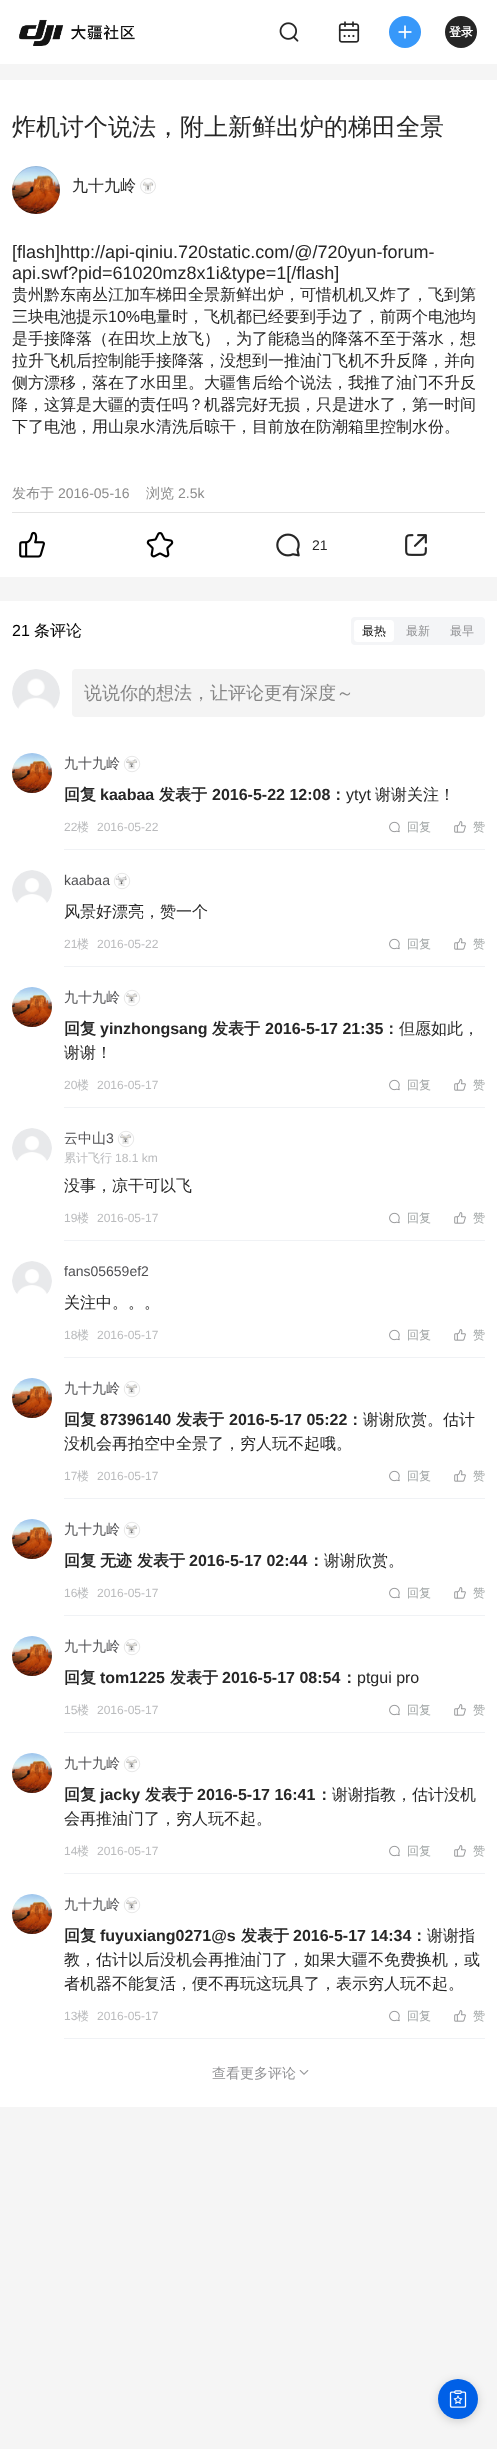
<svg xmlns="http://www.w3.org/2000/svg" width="497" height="2449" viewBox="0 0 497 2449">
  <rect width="100%" height="100%" fill="#f5f5f5"/>
  <path d="M0 0h497v64H0z" fill="#fff"/>
  <image x="19" y="19" width="116" height="27" href="img/1.png"/>
  <image x="279" y="22" width="20" height="20" href="img/2.png"/>
  <image x="338" y="21" width="22" height="22" href="img/3.png"/>
  <circle cx="405" cy="32" r="16" fill="#3798fa"/>
  <image x="398" y="25" width="14" height="14" href="img/4.png"/>
  <circle cx="461" cy="32" r="16" fill="#262626"/>
  <path d="M0 80h497v497H0z" fill="#fff"/>
  <image x="12" y="166" width="48" height="48" href="img/5.png"/>
  <circle cx="36" cy="190" r="23.5" fill="none" stroke="#00000014"/>
  <circle cx="148" cy="186" r="7.5" fill="none" stroke="#e4e4e4"/>
  <image x="142" y="181" width="12" height="11" href="img/6.png"/>
  <path d="M12 512h473v1H12z" fill="#e4e4e4"/>
  <image x="19" y="531" width="26" height="27" href="img/7.png"/>
  <image x="146" y="532" width="28" height="26" href="img/8.png"/>
  <image x="276" y="533" width="24" height="24" href="img/9.png"/>
  <image x="405" y="534" width="22" height="22" href="img/10.png"/>
  <path d="M0 601h497v1506H0z" fill="#fff"/>
  <rect x="351" y="617" width="134" height="28" rx="4" fill="#f4f5f7"/>
  <rect x="354" y="620" width="40" height="22" rx="4" fill="#fff"/>
  <image x="12" y="669" width="48" height="40" href="img/11.png"/>
  <rect x="72" y="669" width="413" height="48" rx="4" fill="#f4f4f4"/>
  <image x="12" y="753" width="40" height="40" href="img/12.png"/>
  <circle cx="132" cy="764" r="7.75" fill="none" stroke="#cecece" stroke-width="0.5"/>
  <image x="126" y="759" width="12" height="10" href="img/13.png"/>
  <image x="389" y="821" width="11" height="12" href="img/14.png"/>
  <image x="454" y="821" width="12" height="12" href="img/15.png"/>
  <path d="M64 849h421v1H64z" fill="#f0f2f5"/>
  <image x="12" y="870" width="40" height="33" href="img/16.png"/>
  <circle cx="122" cy="881" r="7.75" fill="none" stroke="#cecece" stroke-width="0.5"/>
  <image x="115" y="875" width="12" height="11" href="img/17.png"/>
  <image x="389" y="938" width="11" height="12" href="img/14.png"/>
  <image x="454" y="938" width="12" height="12" href="img/15.png"/>
  <path d="M64 966h421v1H64z" fill="#f0f2f5"/>
  <image x="12" y="987" width="40" height="40" href="img/18.png"/>
  <circle cx="132" cy="998" r="7.75" fill="none" stroke="#cecece" stroke-width="0.5"/>
  <image x="126" y="993" width="12" height="10" href="img/13.png"/>
  <image x="389" y="1079" width="11" height="12" href="img/14.png"/>
  <image x="454" y="1079" width="12" height="12" href="img/15.png"/>
  <path d="M64 1107h421v1H64z" fill="#f0f2f5"/>
  <image x="12" y="1128" width="40" height="33" href="img/16.png"/>
  <circle cx="126" cy="1139" r="7.75" fill="none" stroke="#cecece" stroke-width="0.5"/>
  <image x="120" y="1134" width="12" height="10" href="img/19.png"/>
  <image x="389" y="1212" width="11" height="12" href="img/14.png"/>
  <image x="454" y="1212" width="12" height="12" href="img/15.png"/>
  <path d="M64 1240h421v1H64z" fill="#f0f2f5"/>
  <image x="12" y="1261" width="40" height="33" href="img/20.png"/>
  <image x="389" y="1329" width="11" height="12" href="img/14.png"/>
  <image x="454" y="1329" width="12" height="12" href="img/15.png"/>
  <path d="M64 1357h421v1H64z" fill="#f0f2f5"/>
  <image x="12" y="1378" width="40" height="40" href="img/21.png"/>
  <circle cx="132" cy="1389" r="7.75" fill="none" stroke="#cecece" stroke-width="0.5"/>
  <image x="126" y="1384" width="12" height="10" href="img/13.png"/>
  <image x="389" y="1470" width="11" height="12" href="img/14.png"/>
  <image x="454" y="1470" width="12" height="12" href="img/15.png"/>
  <path d="M64 1498h421v1H64z" fill="#f0f2f5"/>
  <image x="12" y="1519" width="40" height="40" href="img/22.png"/>
  <circle cx="132" cy="1530" r="7.75" fill="none" stroke="#cecece" stroke-width="0.5"/>
  <image x="126" y="1525" width="12" height="10" href="img/13.png"/>
  <image x="389" y="1587" width="11" height="12" href="img/14.png"/>
  <image x="454" y="1587" width="12" height="12" href="img/15.png"/>
  <path d="M64 1615h421v1H64z" fill="#f0f2f5"/>
  <image x="12" y="1636" width="40" height="40" href="img/21.png"/>
  <circle cx="132" cy="1647" r="7.75" fill="none" stroke="#cecece" stroke-width="0.5"/>
  <image x="126" y="1642" width="12" height="10" href="img/13.png"/>
  <image x="389" y="1704" width="11" height="12" href="img/14.png"/>
  <image x="454" y="1704" width="12" height="12" href="img/15.png"/>
  <path d="M64 1732h421v1H64z" fill="#f0f2f5"/>
  <image x="12" y="1753" width="40" height="40" href="img/23.png"/>
  <circle cx="132" cy="1764" r="7.75" fill="none" stroke="#cecece" stroke-width="0.5"/>
  <image x="126" y="1759" width="12" height="10" href="img/13.png"/>
  <image x="389" y="1845" width="11" height="12" href="img/14.png"/>
  <image x="454" y="1845" width="12" height="12" href="img/15.png"/>
  <path d="M64 1873h421v1H64z" fill="#f0f2f5"/>
  <image x="12" y="1894" width="40" height="40" href="img/21.png"/>
  <circle cx="132" cy="1905" r="7.75" fill="none" stroke="#cecece" stroke-width="0.5"/>
  <image x="126" y="1900" width="12" height="10" href="img/13.png"/>
  <image x="389" y="2010" width="11" height="12" href="img/14.png"/>
  <image x="454" y="2010" width="12" height="12" href="img/15.png"/>
  <path d="M64 2038h421v1H64z" fill="#f0f2f5"/>
  <image x="299" y="2070" width="10" height="5" href="img/24.png"/>
  <rect x="438" y="2381" width="40" height="40" rx="20" fill="#00000029" filter="blur(5px)"/>
  <circle cx="458" cy="2399" r="20" fill="#0060e7"/>
  <image x="449" y="2390" width="18" height="18" href="img/25.png"/>
  <text x="449" y="36" font-family="WenQuanYi Zen Hei" font-size="12" font-weight="bold" fill="#fff">登录</text>
  <text x="12" y="135" font-family="WenQuanYi Zen Hei" font-size="24" font-weight="500" fill="#262626">炸机讨个说法，附上新鲜出炉的梯田全景</text>
  <text x="72" y="191" font-family="WenQuanYi Zen Hei" font-size="16" font-weight="500" fill="#262626">九十九岭</text>
  <g font-family="Liberation Sans" font-size="18" fill="#262626">
    <text x="12" y="258">[flash]http://api-qiniu.720static.com/@/720yun-forum-</text>
    <text x="12" y="279">api.swf?pid=61020mz8x1i&amp;type=1[/flash]</text>
  </g>
  <g font-family="WenQuanYi Zen Hei" font-size="16" font-weight="500" fill="#262626">
    <text x="12" y="300">贵州黔东南丛江加车梯田全景新鲜出炉，可惜机机又炸了，飞到第</text>
    <text x="12" y="322">三块电池提示</text>
  </g>
  <text x="108" y="322" font-family="Liberation Sans" font-size="16" fill="#262626">10%</text>
  <g font-family="WenQuanYi Zen Hei" font-size="16" font-weight="500" fill="#262626">
    <text x="140" y="322">电量时，飞机都已经要到手边了，前两个电池均</text>
    <text x="12" y="344">是手接降落（在田坎上放飞），为了能稳当的降落不至于落水，想</text>
    <text x="12" y="366">拉升飞机后控制能手接降落，没想到一推油门飞机不升反降，并向</text>
    <text x="12" y="388">侧方漂移，落在了水田里。大疆售后给个说法，我推了油门不升反</text>
    <text x="12" y="410">降，这算是大疆的责任吗？机器完好无损，只是进水了，第一时间</text>
    <text x="12" y="432">下了电池，用山泉水清洗后晾干，目前放在防潮箱里控制水份。</text>
  </g>
  <text x="12" y="498" font-family="WenQuanYi Zen Hei" font-size="14" font-weight="500" fill="#8c8c8c">发布于</text>
  <text x="58" y="498" font-family="Liberation Sans" font-size="14" fill="#8c8c8c">2016-05-16</text>
  <text x="146" y="498" font-family="WenQuanYi Zen Hei" font-size="14" font-weight="500" fill="#8c8c8c">浏览</text>
  <text x="178" y="498" font-family="Liberation Sans" font-size="14" fill="#8c8c8c">2.5k</text>
  <text x="312" y="550" font-family="Liberation Sans" font-size="14" fill="#262626">21</text>
  <text x="12" y="636" font-family="Liberation Sans" font-size="16" fill="#000">21</text>
  <text x="34" y="636" font-family="WenQuanYi Zen Hei" font-size="16" font-weight="500" fill="#000">条评论</text>
  <text x="362" y="635" font-family="WenQuanYi Zen Hei" font-size="12" font-weight="500" fill="#0c0c0c">最热</text>
  <g font-family="WenQuanYi Zen Hei" font-size="12" font-weight="500" fill="#919294">
    <text x="406" y="635">最新</text>
    <text x="450" y="635">最早</text>
  </g>
  <text x="84" y="699" font-family="WenQuanYi Zen Hei" font-size="18" font-weight="500" fill="#868686">说说你的想法，让评论更有深度～</text>
  <text x="64" y="768" font-family="WenQuanYi Zen Hei" font-size="14" font-weight="500" fill="#4f4f52">九十九岭</text>
  <text x="64" y="800" font-family="WenQuanYi Zen Hei" font-size="16" font-weight="bold" fill="#262626">回复</text>
  <text x="100" y="800" font-family="Liberation Sans" font-size="16" font-weight="bold" fill="#262626">kaabaa</text>
  <text x="159" y="800" font-family="WenQuanYi Zen Hei" font-size="16" font-weight="bold" fill="#262626">发表于</text>
  <text x="212" y="800" font-family="Liberation Sans" font-size="16" font-weight="bold" fill="#262626">2016-5-22 12:08</text>
  <text x="330" y="800" font-family="WenQuanYi Zen Hei" font-size="16" font-weight="bold" fill="#262626">：</text>
  <text x="346" y="800" font-family="Liberation Sans" font-size="16" fill="#262626">ytyt</text>
  <text x="375" y="800" font-family="WenQuanYi Zen Hei" font-size="16" font-weight="500" fill="#262626">谢谢关注！</text>
  <text x="64" y="831" font-family="Liberation Sans" font-size="12" fill="#babbbd">22</text>
  <text x="77" y="831" font-family="WenQuanYi Zen Hei" font-size="12" font-weight="500" fill="#babbbd">楼</text>
  <text x="97" y="831" font-family="Liberation Sans" font-size="12" fill="#babbbd">2016-05-22</text>
  <g font-family="WenQuanYi Zen Hei" font-size="12" font-weight="500" fill="#a0a5a5">
    <text x="407" y="831">回复</text>
    <text x="473" y="831">赞</text>
  </g>
  <text x="64" y="885" font-family="Liberation Sans" font-size="14" fill="#4f4f52">kaabaa</text>
  <text x="64" y="917" font-family="WenQuanYi Zen Hei" font-size="16" font-weight="500" fill="#262626">风景好漂亮，赞一个</text>
  <text x="64" y="948" font-family="Liberation Sans" font-size="12" fill="#babbbd">21</text>
  <text x="77" y="948" font-family="WenQuanYi Zen Hei" font-size="12" font-weight="500" fill="#babbbd">楼</text>
  <text x="97" y="948" font-family="Liberation Sans" font-size="12" fill="#babbbd">2016-05-22</text>
  <g font-family="WenQuanYi Zen Hei" font-size="12" font-weight="500" fill="#a0a5a5">
    <text x="407" y="948">回复</text>
    <text x="473" y="948">赞</text>
  </g>
  <text x="64" y="1002" font-family="WenQuanYi Zen Hei" font-size="14" font-weight="500" fill="#4f4f52">九十九岭</text>
  <text x="64" y="1034" font-family="WenQuanYi Zen Hei" font-size="16" font-weight="bold" fill="#262626">回复</text>
  <text x="100" y="1034" font-family="Liberation Sans" font-size="16" font-weight="bold" fill="#262626">yinzhongsang</text>
  <text x="212" y="1034" font-family="WenQuanYi Zen Hei" font-size="16" font-weight="bold" fill="#262626">发表于</text>
  <text x="265" y="1034" font-family="Liberation Sans" font-size="16" font-weight="bold" fill="#262626">2016-5-17 21:35</text>
  <text x="383" y="1034" font-family="WenQuanYi Zen Hei" font-size="16" font-weight="bold" fill="#262626">：</text>
  <g font-family="WenQuanYi Zen Hei" font-size="16" font-weight="500" fill="#262626">
    <text x="399" y="1034">但愿如此，</text>
    <text x="64" y="1058">谢谢！</text>
  </g>
  <text x="64" y="1089" font-family="Liberation Sans" font-size="12" fill="#babbbd">20</text>
  <text x="77" y="1089" font-family="WenQuanYi Zen Hei" font-size="12" font-weight="500" fill="#babbbd">楼</text>
  <text x="97" y="1089" font-family="Liberation Sans" font-size="12" fill="#babbbd">2016-05-17</text>
  <g font-family="WenQuanYi Zen Hei" font-size="12" font-weight="500" fill="#a0a5a5">
    <text x="407" y="1089">回复</text>
    <text x="473" y="1089">赞</text>
  </g>
  <text x="64" y="1143" font-family="WenQuanYi Zen Hei" font-size="14" font-weight="500" fill="#4f4f52">云中山</text>
  <text x="106" y="1143" font-family="Liberation Sans" font-size="14" fill="#4f4f52">3</text>
  <text x="64" y="1162" font-family="WenQuanYi Zen Hei" font-size="12" font-weight="500" fill="#babbbd">累计飞行</text>
  <text x="115" y="1162" font-family="Liberation Sans" font-size="12" fill="#babbbd">18.1 km</text>
  <text x="64" y="1191" font-family="WenQuanYi Zen Hei" font-size="16" font-weight="500" fill="#262626">没事，凉干可以飞</text>
  <text x="64" y="1222" font-family="Liberation Sans" font-size="12" fill="#babbbd">19</text>
  <text x="77" y="1222" font-family="WenQuanYi Zen Hei" font-size="12" font-weight="500" fill="#babbbd">楼</text>
  <text x="97" y="1222" font-family="Liberation Sans" font-size="12" fill="#babbbd">2016-05-17</text>
  <g font-family="WenQuanYi Zen Hei" font-size="12" font-weight="500" fill="#a0a5a5">
    <text x="407" y="1222">回复</text>
    <text x="473" y="1222">赞</text>
  </g>
  <text x="64" y="1276" font-family="Liberation Sans" font-size="14" fill="#4f4f52">fans05659ef2</text>
  <text x="64" y="1308" font-family="WenQuanYi Zen Hei" font-size="16" font-weight="500" fill="#262626">关注中。。。</text>
  <text x="64" y="1339" font-family="Liberation Sans" font-size="12" fill="#babbbd">18</text>
  <text x="77" y="1339" font-family="WenQuanYi Zen Hei" font-size="12" font-weight="500" fill="#babbbd">楼</text>
  <text x="97" y="1339" font-family="Liberation Sans" font-size="12" fill="#babbbd">2016-05-17</text>
  <g font-family="WenQuanYi Zen Hei" font-size="12" font-weight="500" fill="#a0a5a5">
    <text x="407" y="1339">回复</text>
    <text x="473" y="1339">赞</text>
  </g>
  <text x="64" y="1393" font-family="WenQuanYi Zen Hei" font-size="14" font-weight="500" fill="#4f4f52">九十九岭</text>
  <text x="64" y="1425" font-family="WenQuanYi Zen Hei" font-size="16" font-weight="bold" fill="#262626">回复</text>
  <text x="100" y="1425" font-family="Liberation Sans" font-size="16" font-weight="bold" fill="#262626">87396140</text>
  <text x="176" y="1425" font-family="WenQuanYi Zen Hei" font-size="16" font-weight="bold" fill="#262626">发表于</text>
  <text x="229" y="1425" font-family="Liberation Sans" font-size="16" font-weight="bold" fill="#262626">2016-5-17 05:22</text>
  <text x="347" y="1425" font-family="WenQuanYi Zen Hei" font-size="16" font-weight="bold" fill="#262626">：</text>
  <g font-family="WenQuanYi Zen Hei" font-size="16" font-weight="500" fill="#262626">
    <text x="363" y="1425">谢谢欣赏。估计</text>
    <text x="64" y="1449">没机会再拍空中全景了，穷人玩不起哦。</text>
  </g>
  <text x="64" y="1480" font-family="Liberation Sans" font-size="12" fill="#babbbd">17</text>
  <text x="77" y="1480" font-family="WenQuanYi Zen Hei" font-size="12" font-weight="500" fill="#babbbd">楼</text>
  <text x="97" y="1480" font-family="Liberation Sans" font-size="12" fill="#babbbd">2016-05-17</text>
  <g font-family="WenQuanYi Zen Hei" font-size="12" font-weight="500" fill="#a0a5a5">
    <text x="407" y="1480">回复</text>
    <text x="473" y="1480">赞</text>
  </g>
  <text x="64" y="1534" font-family="WenQuanYi Zen Hei" font-size="14" font-weight="500" fill="#4f4f52">九十九岭</text>
  <g font-family="WenQuanYi Zen Hei" font-size="16" font-weight="bold" fill="#262626">
    <text x="64" y="1566">回复</text>
    <text x="100" y="1566">无迹</text>
    <text x="137" y="1566">发表于</text>
  </g>
  <text x="189" y="1566" font-family="Liberation Sans" font-size="16" font-weight="bold" fill="#262626">2016-5-17 02:44</text>
  <text x="308" y="1566" font-family="WenQuanYi Zen Hei" font-size="16" font-weight="bold" fill="#262626">：</text>
  <text x="324" y="1566" font-family="WenQuanYi Zen Hei" font-size="16" font-weight="500" fill="#262626">谢谢欣赏。</text>
  <text x="64" y="1597" font-family="Liberation Sans" font-size="12" fill="#babbbd">16</text>
  <text x="77" y="1597" font-family="WenQuanYi Zen Hei" font-size="12" font-weight="500" fill="#babbbd">楼</text>
  <text x="97" y="1597" font-family="Liberation Sans" font-size="12" fill="#babbbd">2016-05-17</text>
  <g font-family="WenQuanYi Zen Hei" font-size="12" font-weight="500" fill="#a0a5a5">
    <text x="407" y="1597">回复</text>
    <text x="473" y="1597">赞</text>
  </g>
  <text x="64" y="1651" font-family="WenQuanYi Zen Hei" font-size="14" font-weight="500" fill="#4f4f52">九十九岭</text>
  <text x="64" y="1683" font-family="WenQuanYi Zen Hei" font-size="16" font-weight="bold" fill="#262626">回复</text>
  <text x="100" y="1683" font-family="Liberation Sans" font-size="16" font-weight="bold" fill="#262626">tom1225</text>
  <text x="170" y="1683" font-family="WenQuanYi Zen Hei" font-size="16" font-weight="bold" fill="#262626">发表于</text>
  <text x="222" y="1683" font-family="Liberation Sans" font-size="16" font-weight="bold" fill="#262626">2016-5-17 08:54</text>
  <text x="341" y="1683" font-family="WenQuanYi Zen Hei" font-size="16" font-weight="bold" fill="#262626">：</text>
  <text x="357" y="1683" font-family="Liberation Sans" font-size="16" fill="#262626">ptgui pro</text>
  <text x="64" y="1714" font-family="Liberation Sans" font-size="12" fill="#babbbd">15</text>
  <text x="77" y="1714" font-family="WenQuanYi Zen Hei" font-size="12" font-weight="500" fill="#babbbd">楼</text>
  <text x="97" y="1714" font-family="Liberation Sans" font-size="12" fill="#babbbd">2016-05-17</text>
  <g font-family="WenQuanYi Zen Hei" font-size="12" font-weight="500" fill="#a0a5a5">
    <text x="407" y="1714">回复</text>
    <text x="473" y="1714">赞</text>
  </g>
  <text x="64" y="1768" font-family="WenQuanYi Zen Hei" font-size="14" font-weight="500" fill="#4f4f52">九十九岭</text>
  <text x="64" y="1800" font-family="WenQuanYi Zen Hei" font-size="16" font-weight="bold" fill="#262626">回复</text>
  <text x="100" y="1800" font-family="Liberation Sans" font-size="16" font-weight="bold" fill="#262626">jacky</text>
  <text x="145" y="1800" font-family="WenQuanYi Zen Hei" font-size="16" font-weight="bold" fill="#262626">发表于</text>
  <text x="197" y="1800" font-family="Liberation Sans" font-size="16" font-weight="bold" fill="#262626">2016-5-17 16:41</text>
  <text x="316" y="1800" font-family="WenQuanYi Zen Hei" font-size="16" font-weight="bold" fill="#262626">：</text>
  <g font-family="WenQuanYi Zen Hei" font-size="16" font-weight="500" fill="#262626">
    <text x="332" y="1800">谢谢指教，估计没机</text>
    <text x="64" y="1824">会再推油门了，穷人玩不起。</text>
  </g>
  <text x="64" y="1855" font-family="Liberation Sans" font-size="12" fill="#babbbd">14</text>
  <text x="77" y="1855" font-family="WenQuanYi Zen Hei" font-size="12" font-weight="500" fill="#babbbd">楼</text>
  <text x="97" y="1855" font-family="Liberation Sans" font-size="12" fill="#babbbd">2016-05-17</text>
  <g font-family="WenQuanYi Zen Hei" font-size="12" font-weight="500" fill="#a0a5a5">
    <text x="407" y="1855">回复</text>
    <text x="473" y="1855">赞</text>
  </g>
  <text x="64" y="1909" font-family="WenQuanYi Zen Hei" font-size="14" font-weight="500" fill="#4f4f52">九十九岭</text>
  <text x="64" y="1941" font-family="WenQuanYi Zen Hei" font-size="16" font-weight="bold" fill="#262626">回复</text>
  <text x="100" y="1941" font-family="Liberation Sans" font-size="16" font-weight="bold" fill="#262626">fuyuxiang0271@s</text>
  <text x="241" y="1941" font-family="WenQuanYi Zen Hei" font-size="16" font-weight="bold" fill="#262626">发表于</text>
  <text x="293" y="1941" font-family="Liberation Sans" font-size="16" font-weight="bold" fill="#262626">2016-5-17 14:34</text>
  <text x="411" y="1941" font-family="WenQuanYi Zen Hei" font-size="16" font-weight="bold" fill="#262626">：</text>
  <g font-family="WenQuanYi Zen Hei" font-size="16" font-weight="500" fill="#262626">
    <text x="427" y="1941">谢谢指</text>
    <text x="64" y="1965">教，估计以后没机会再推油门了，如果大疆不免费换机，或</text>
    <text x="64" y="1989">者机器不能复活，便不再玩这玩具了，表示穷人玩不起。</text>
  </g>
  <text x="64" y="2020" font-family="Liberation Sans" font-size="12" fill="#babbbd">13</text>
  <text x="77" y="2020" font-family="WenQuanYi Zen Hei" font-size="12" font-weight="500" fill="#babbbd">楼</text>
  <text x="97" y="2020" font-family="Liberation Sans" font-size="12" fill="#babbbd">2016-05-17</text>
  <g font-family="WenQuanYi Zen Hei" font-size="12" font-weight="500" fill="#a0a5a5">
    <text x="407" y="2020">回复</text>
    <text x="473" y="2020">赞</text>
  </g>
  <text x="212" y="2078" font-family="WenQuanYi Zen Hei" font-size="14" font-weight="500" fill="#919294">查看更多评论</text>
</svg>
